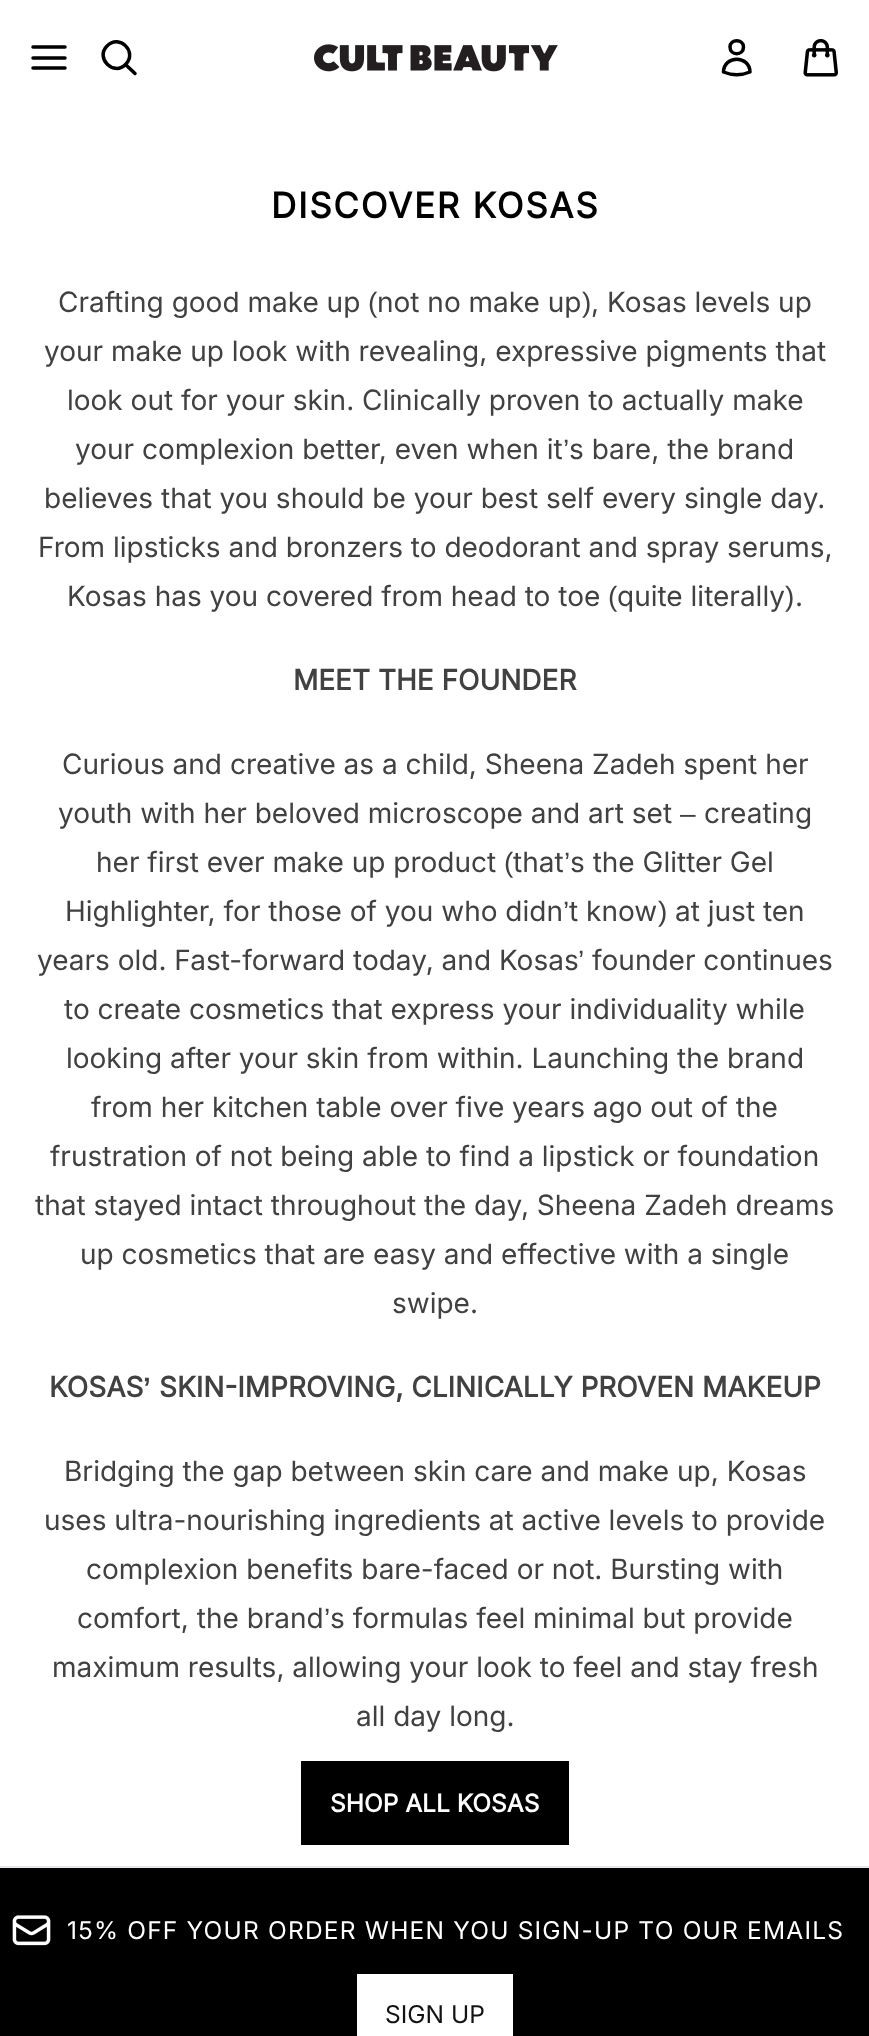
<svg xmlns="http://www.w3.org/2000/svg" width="869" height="2036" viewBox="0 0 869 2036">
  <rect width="100%" height="100%" fill="#fff"/>
  <path d="M33 58H65M33 47H65M33 68H65" fill="none" stroke="#000" stroke-width="3.5" stroke-linecap="round" stroke-linejoin="round"/>
  <path d="M135 73.5L125.5 64.5M125.5 64.5C138 52 119.5 33.5 107 46C95 58 113.5 76.5 125.5 64.5Z" fill="none" stroke="#000" stroke-width="3.5" stroke-linecap="round" stroke-linejoin="round"/>
  <image x="314" y="44" width="244" height="28" href="img/1.png"/>
  <path d="M743.5 47C743.5 56 730 56 730 47C730 38.5 743.5 38.5 743.5 47ZM723.5 72C724 55 749.5 55 750 72C741.5 75.5 732 75.5 723.5 72Z" fill="none" stroke="#000" stroke-width="3.5" stroke-linecap="round" stroke-linejoin="round"/>
  <image x="803" y="38" width="35" height="39" href="img/2.png"/>
  <path d="M301 1761h268v84H301z" fill="#000"/>
  <path d="M0 1868h869v168H0z" fill="#000"/>
  <path d="M0 1866h869v2H0z" fill="#e5e7eb"/>
  <image x="12" y="1915" width="39" height="31" href="img/3.png"/>
  <path d="M357 1974h156v62H357z" fill="#fff"/>
  <text x="271" y="218" font-family="Inter" font-size="35" font-weight="bold" letter-spacing="1.75" fill="#000">DISCOVER KOSAS</text>
  <text x="58" y="312" font-family="Inter" font-size="28" fill="#414141">Crafting good make up</text>
  <text x="368" y="312" font-family="Liberation Sans" font-size="28" fill="#414141">(</text>
  <text x="377" y="312" font-family="Inter" font-size="28" fill="#414141">not no make up</text>
  <text x="582" y="312" font-family="Liberation Sans" font-size="28" fill="#414141">)</text>
  <g font-family="Inter" font-size="28" fill="#414141">
    <text x="591" y="312">, Kosas levels up</text>
    <text x="44" y="361">your make up look with revealing, expressive pigments that</text>
    <text x="67" y="410">look out for your skin. Clinically proven to actually make</text>
    <text x="75" y="459">your complexion better, even when it</text>
  </g>
  <text x="563" y="459" font-family="Liberation Sans" font-size="28" fill="#414141">’</text>
  <g font-family="Inter" font-size="28" fill="#414141">
    <text x="569" y="459">s bare, the brand</text>
    <text x="44" y="508">believes that you should be your best self every single day.</text>
    <text x="38" y="557">From lipsticks and bronzers to deodorant and spray serums,</text>
    <text x="67" y="606">Kosas has you covered from head to toe</text>
  </g>
  <text x="608" y="606" font-family="Liberation Sans" font-size="28" fill="#414141">(</text>
  <text x="617" y="606" font-family="Inter" font-size="28" fill="#414141">quite literally</text>
  <text x="785" y="606" font-family="Liberation Sans" font-size="28" fill="#414141">)</text>
  <text x="795" y="606" font-family="Inter" font-size="28" fill="#414141">.</text>
  <text x="293" y="690" font-family="Inter" font-size="28" font-weight="bold" fill="#414141">MEET THE FOUNDER</text>
  <g font-family="Inter" font-size="28" fill="#414141">
    <text x="62" y="774">Curious and creative as a child, Sheena Zadeh spent her</text>
    <text x="58" y="823">youth with her beloved microscope and art set</text>
  </g>
  <text x="680" y="823" font-family="Liberation Sans" font-size="28" fill="#414141">–</text>
  <g font-family="Inter" font-size="28" fill="#414141">
    <text x="704" y="823">creating</text>
    <text x="96" y="872">her first ever make up product</text>
  </g>
  <text x="504" y="872" font-family="Liberation Sans" font-size="28" fill="#414141">(</text>
  <text x="513" y="872" font-family="Inter" font-size="28" fill="#414141">that</text>
  <text x="564" y="872" font-family="Liberation Sans" font-size="28" fill="#414141">’</text>
  <g font-family="Inter" font-size="28" fill="#414141">
    <text x="570" y="872">s the Glitter Gel</text>
    <text x="65" y="921">Highlighter, for those of you who didn</text>
  </g>
  <text x="563" y="921" font-family="Liberation Sans" font-size="28" fill="#414141">’</text>
  <text x="569" y="921" font-family="Inter" font-size="28" fill="#414141">t know</text>
  <text x="658" y="921" font-family="Liberation Sans" font-size="28" fill="#414141">)</text>
  <g font-family="Inter" font-size="28" fill="#414141">
    <text x="675" y="921">at just ten</text>
    <text x="37" y="970">years old. Fast-forward today, and Kosas</text>
  </g>
  <text x="578" y="970" font-family="Liberation Sans" font-size="28" fill="#414141">’</text>
  <g font-family="Inter" font-size="28" fill="#414141">
    <text x="592" y="970">founder continues</text>
    <text x="64" y="1019">to create cosmetics that express your individuality while</text>
    <text x="66" y="1068">looking after your skin from within. Launching the brand</text>
    <text x="91" y="1117">from her kitchen table over five years ago out of the</text>
    <text x="50" y="1166">frustration of not being able to find a lipstick or foundation</text>
    <text x="35" y="1215">that stayed intact throughout the day, Sheena Zadeh dreams</text>
    <text x="80" y="1264">up cosmetics that are easy and effective with a single</text>
    <text x="392" y="1313">swipe.</text>
  </g>
  <text x="49" y="1397" font-family="Inter" font-size="28" font-weight="bold" fill="#414141">KOSAS</text>
  <text x="143" y="1397" font-family="Liberation Sans" font-size="28" font-weight="bold" fill="#414141">’</text>
  <text x="159" y="1397" font-family="Inter" font-size="28" font-weight="bold" fill="#414141">SKIN-IMPROVING, CLINICALLY PROVEN MAKEUP</text>
  <g font-family="Inter" font-size="28" fill="#414141">
    <text x="64" y="1481">Bridging the gap between skin care and make up, Kosas</text>
    <text x="44" y="1530">uses ultra-nourishing ingredients at active levels to provide</text>
    <text x="86" y="1579">complexion benefits bare-faced or not. Bursting with</text>
    <text x="77" y="1628">comfort, the brand</text>
  </g>
  <text x="324" y="1628" font-family="Liberation Sans" font-size="28" fill="#414141">’</text>
  <g font-family="Inter" font-size="28" fill="#414141">
    <text x="330" y="1628">s formulas feel minimal but provide</text>
    <text x="52" y="1677">maximum results, allowing your look to feel and stay fresh</text>
    <text x="356" y="1726">all day long.</text>
  </g>
  <text x="330" y="1812" font-family="Inter" font-size="24.5" font-weight="bold" fill="#fff">SHOP ALL KOSAS</text>
  <text x="67" y="1939" font-family="Inter" font-size="24.5" letter-spacing="1.2" fill="#fff">15% OFF YOUR ORDER WHEN YOU SIGN-UP TO OUR EMAILS</text>
  <text x="385" y="2023" font-family="Inter" font-size="24.5" fill="#121212">SIGN UP</text>
</svg>
